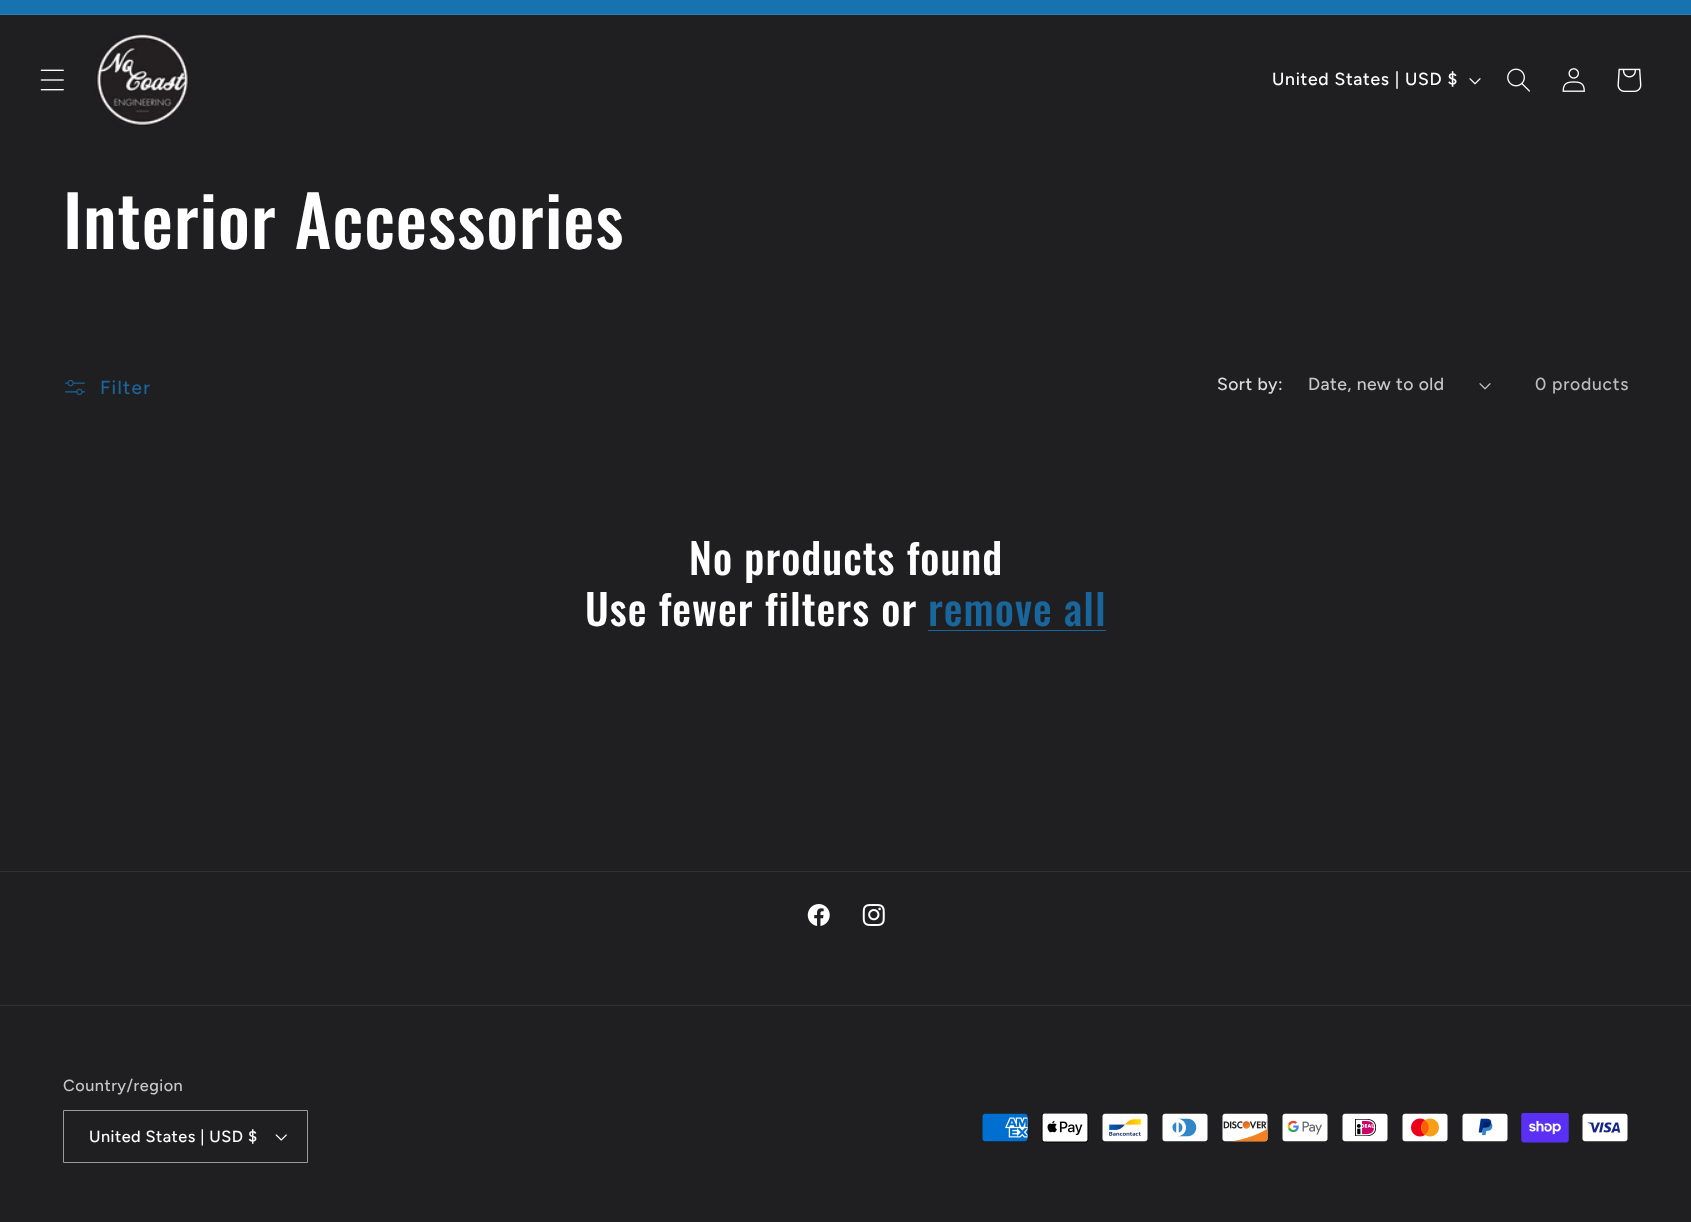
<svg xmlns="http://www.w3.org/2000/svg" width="1691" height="1222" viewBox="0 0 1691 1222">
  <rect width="100%" height="100%" fill="#1f1f21"/>
  <path d="M0 0h1691v14H0z" fill="#1773b0"/>
  <path d="M0 14h1691v1H0z" fill="#2a7eb6"/>
  <image x="40" y="69" width="24" height="22" href="img/1.png"/>
  <image x="95" y="32" width="96" height="95" href="img/2.png"/>
  <image x="1469" y="78" width="12" height="7" href="img/3.png"/>
  <image x="1507" y="68" width="23" height="24" href="img/4.png"/>
  <image x="1562" y="68" width="23" height="24" href="img/5.png"/>
  <image x="1617" y="68" width="25" height="24" href="img/6.png"/>
  <image x="65" y="380" width="20" height="15" href="img/7.png"/>
  <image x="1479" y="383" width="12" height="7" href="img/8.png"/>
  <path d="M928 630h178v1H928z" fill="#18669b"/>
  <path d="M0 871h1691v1H0z" fill="#313133"/>
  <image x="807" y="904" width="23" height="22" href="img/9.png"/>
  <image x="862" y="904" width="23" height="22" href="img/10.png"/>
  <path d="M0 1005h1691v1H0z" fill="#313133"/>
  <image x="275" y="1134" width="12" height="7" href="img/11.png"/>
  <path d="M63.5 1110.5h244v52H63.5z" fill="none" stroke="#9a9a9b"/>
  <image x="982" y="1113" width="46" height="29" href="img/12.png"/>
  <image x="1041" y="1113" width="48" height="30" href="img/13.png"/>
  <image x="1102" y="1113" width="46" height="29" href="img/14.png"/>
  <image x="1162" y="1113" width="46" height="29" href="img/15.png"/>
  <image x="1222" y="1113" width="46" height="29" href="img/16.png"/>
  <image x="1282" y="1113" width="46" height="29" href="img/17.png"/>
  <image x="1342" y="1113" width="46" height="29" href="img/18.png"/>
  <image x="1402" y="1113" width="46" height="29" href="img/19.png"/>
  <image x="1462" y="1113" width="46" height="29" href="img/20.png"/>
  <image x="1521" y="1113" width="48" height="30" href="img/21.png"/>
  <image x="1582" y="1113" width="46" height="29" href="img/22.png"/>
  <text x="1272" y="85" font-family="Figtree" font-size="17.5" font-weight="500" letter-spacing="0.75" fill="#fff">United States | USD $</text>
  <text x="63" y="249" font-family="Oswald" font-size="70" font-weight="500" letter-spacing="1.05" fill="#fff">Interior Accessories</text>
  <text x="100" y="394" font-family="Figtree" font-size="19" font-weight="500" letter-spacing="1.25" fill="#18669b">Filter</text>
  <text x="1217" y="390" font-family="Figtree" font-size="17.5" font-weight="500" letter-spacing="0.5" fill="#ddddde">Sort by:</text>
  <text x="1308" y="390" font-family="Figtree" font-size="17.5" font-weight="500" letter-spacing="0.5" fill="#c7c7c8">Date, new to old</text>
  <text x="1535" y="390" font-family="Figtree" font-size="17.5" font-weight="500" letter-spacing="0.75" fill="#bcbcbc">0 products</text>
  <g font-family="Oswald" font-size="42" font-weight="500" letter-spacing="1.05" fill="#fff">
    <text x="689" y="575">No products found</text>
    <text x="585" y="626">Use fewer filters or</text>
  </g>
  <text x="928" y="626" font-family="Oswald" font-size="42" font-weight="500" letter-spacing="1.05" fill="#18669b">remove all</text>
  <text x="63" y="1091" font-family="Figtree" font-size="16.25" font-weight="500" letter-spacing="0.5" fill="#c7c7c8">Country/region</text>
  <text x="89" y="1142" font-family="Figtree" font-size="16.25" font-weight="500" letter-spacing="0.5" fill="#fff">United States | USD $</text>
</svg>
